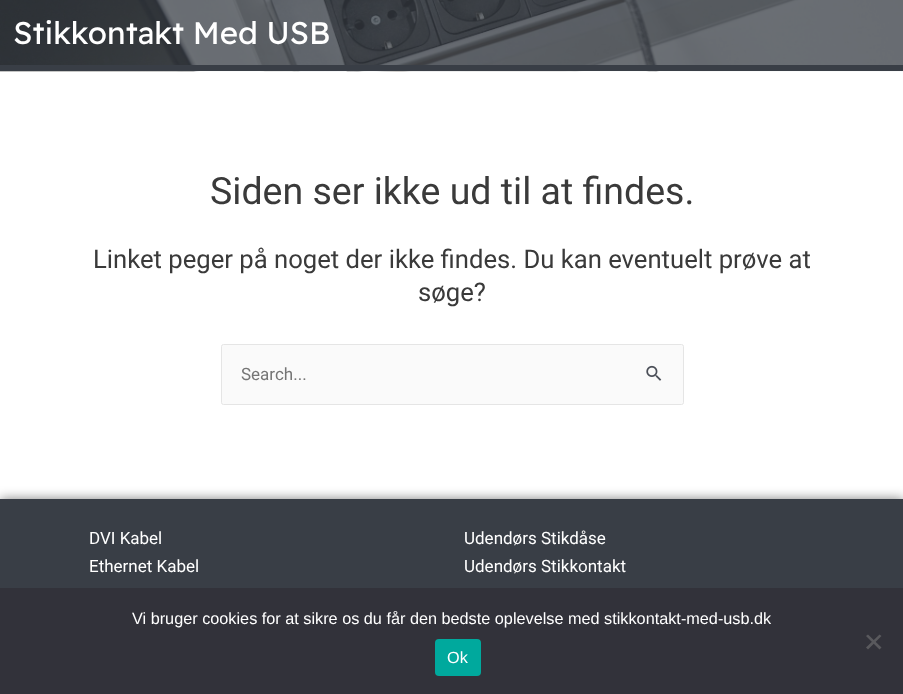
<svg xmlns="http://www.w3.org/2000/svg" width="903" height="694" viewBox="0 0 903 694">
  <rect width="100%" height="100%" fill="#fff"/>
  <image x="0" y="0" width="903" height="72" href="img/1.png"/>
  <path d="M0 65h903v6H0z" fill="#393e46"/>
  <rect x="221.5" y="344.5" width="462" height="60" rx="2" fill="#fafafa" stroke="#e5e5e5"/>
  <image x="646" y="365" width="16" height="16" href="img/2.png"/>
  <path d="M0 499h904v162H0z" fill="#00000080" filter="blur(6px)"/>
  <path d="M0 499h903v89H0z" fill="#393e46"/>
  <path d="M0 588h903v106H0z" fill="#32323a"/>
  <path d="M879.5 634.5L881.5 636L868 649.5L866 647.5Z" fill="#59595d"/>
  <path d="M866 636L868 634.5L881.5 647.5L879.5 649.5Z" fill="#59595d"/>
  <rect x="435" y="639" width="46" height="37" rx="4" fill="#00a99d"/>
  <text x="13" y="44" font-family="Readex Pro" font-size="31.25" fill="#fff">Stikkontakt Med USB</text>
  <text x="210" y="204" font-family="Roboto" font-size="37.5" fill="#3a3a3a">Siden ser ikke ud til at findes.</text>
  <g font-family="Roboto" font-size="25.65" fill="#3a3a3a">
    <text x="93" y="268">Linket peger på noget der ikke findes. Du kan eventuelt prøve at</text>
    <text x="418" y="301">søge?</text>
  </g>
  <text x="241" y="380" font-family="Roboto" font-size="17" fill="#757575">Search...</text>
  <g font-family="Roboto" font-size="17" fill="#fff">
    <text x="89" y="544">DVI Kabel</text>
    <text x="89" y="572">Ethernet Kabel</text>
    <text x="464" y="544">Udendørs Stikdåse</text>
    <text x="464" y="572">Udendørs Stikkontakt</text>
  </g>
  <g font-family="Liberation Sans" font-size="16.25" fill="#fff">
    <text x="132" y="624">Vi bruger cookies for at sikre os du får den bedste oplevelse med stikkontakt-med-usb.dk</text>
    <text x="447" y="663">Ok</text>
  </g>
</svg>
